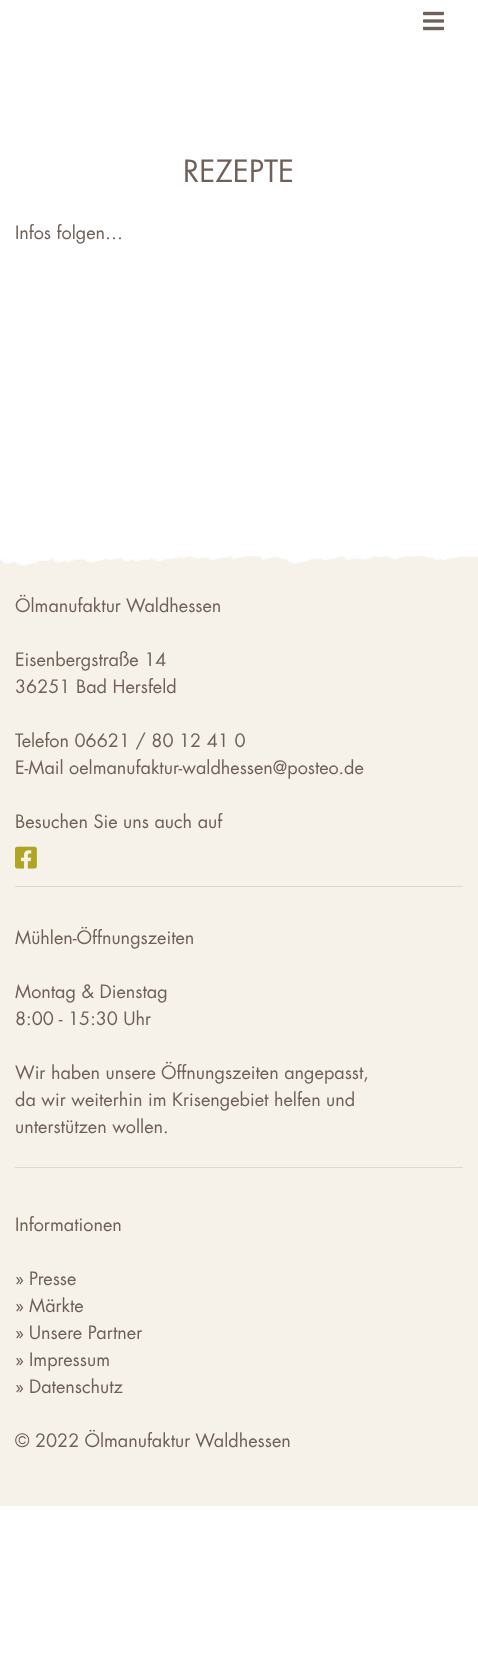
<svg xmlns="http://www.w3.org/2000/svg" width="478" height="1660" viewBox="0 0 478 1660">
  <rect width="100%" height="100%" fill="#fff"/>
  <image x="423" y="11" width="21" height="20" href="img/1.png"/>
  <path d="M0 566h478v940H0z" fill="#f6f2ea"/>
  <image x="0" y="542" width="478" height="24" href="img/2.png"/>
  <image x="15" y="846" width="22" height="23" href="img/3.png"/>
  <path d="M15 886h448v1H15z" fill="#dddad3"/>
  <path d="M15 1167h448v1H15z" fill="#dddad3"/>
  <text x="183" y="182" font-family="Futura" font-size="30" fill="#706158">REZEPTE</text>
  <g font-family="Futura" font-size="18" fill="#706158">
    <text x="15" y="239">Infos folgen…</text>
    <text x="15" y="612">Ölmanufaktur Waldhessen</text>
    <text x="15" y="666">Eisenbergstraße 14</text>
    <text x="15" y="693">36251 Bad Hersfeld</text>
    <text x="15" y="747">Telefon 06621 / 80 12 41 0</text>
    <text x="15" y="774">E-Mail oelmanufaktur-waldhessen@posteo.de</text>
    <text x="15" y="828">Besuchen Sie uns auch auf</text>
    <text x="15" y="944">Mühlen-Öffnungszeiten</text>
    <text x="15" y="998">Montag &amp; Dienstag</text>
    <text x="15" y="1025">8:00 - 15:30 Uhr</text>
    <text x="15" y="1079">Wir haben unsere Öffnungszeiten angepasst,</text>
    <text x="15" y="1106">da wir weiterhin im Krisengebiet helfen und</text>
    <text x="15" y="1133">unterstützen wollen.</text>
    <text x="15" y="1231">Informationen</text>
    <text x="15" y="1285">» Presse</text>
    <text x="15" y="1312">» Märkte</text>
    <text x="15" y="1339">» Unsere Partner</text>
    <text x="15" y="1366">» Impressum</text>
    <text x="15" y="1393">» Datenschutz</text>
    <text x="15" y="1447">© 2022 Ölmanufaktur Waldhessen</text>
  </g>
</svg>
